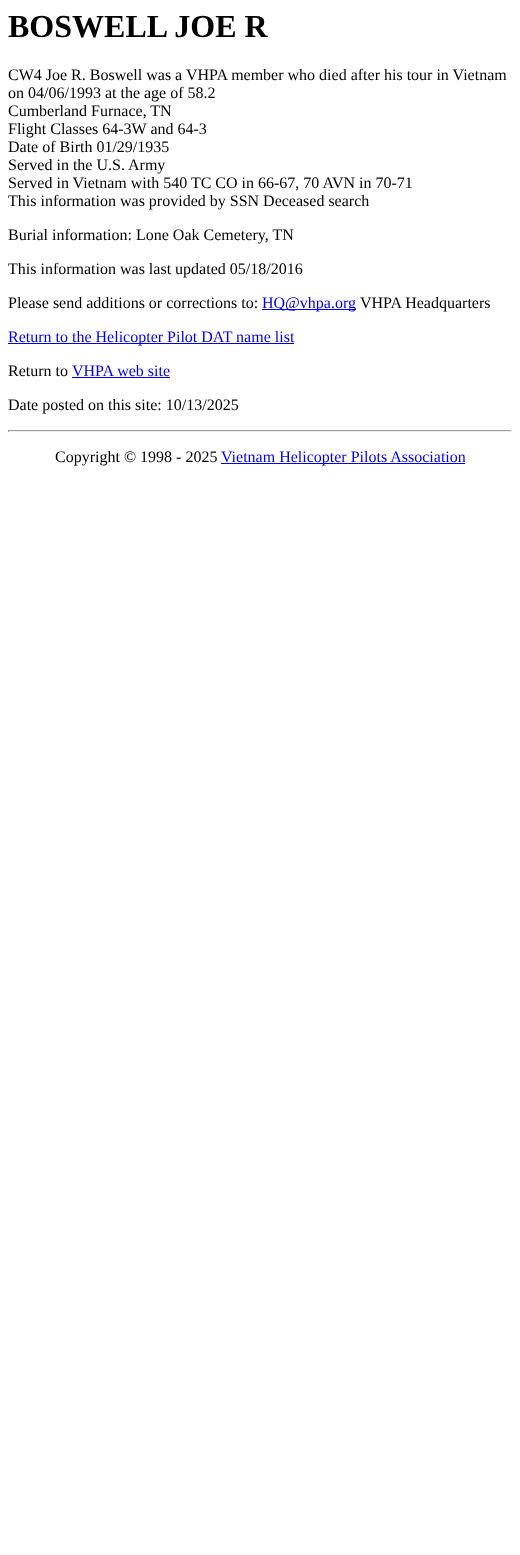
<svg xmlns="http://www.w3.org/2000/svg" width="520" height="1555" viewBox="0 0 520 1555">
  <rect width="100%" height="100%" fill="#fff"/>
  <path d="M262 309h94v1H262z" fill="#00e"/>
  <path d="M8 343h286v1H8z" fill="#00e"/>
  <path d="M72 377h98v1H72z" fill="#00e"/>
  <path d="M8 430h504v1H8z" fill="#9f9f9f"/>
  <path d="M511 430h1v2H511z" fill="#eee"/>
  <path d="M8 431h504v1H8z" fill="#eee"/>
  <path d="M8 430h1v2H8z" fill="#9f9f9f"/>
  <path d="M221 463h244v1H221z" fill="#00e"/>
  <text x="8" y="37" font-family="Liberation Serif" font-size="32" font-weight="bold" fill="#000">BOSWELL JOE R</text>
  <g font-family="Liberation Serif" font-size="16" fill="#000">
    <text x="8" y="80">CW4 Joe R. Boswell was a VHPA member who died after his tour in Vietnam</text>
    <text x="8" y="98">on 04/06/1993 at the age of 58.2</text>
    <text x="8" y="116">Cumberland Furnace, TN</text>
    <text x="8" y="134">Flight Classes 64-3W and 64-3</text>
    <text x="8" y="152">Date of Birth 01/29/1935</text>
    <text x="8" y="170">Served in the U.S. Army</text>
    <text x="8" y="188">Served in Vietnam with 540 TC CO in 66-67, 70 AVN in 70-71</text>
    <text x="8" y="206">This information was provided by SSN Deceased search</text>
    <text x="8" y="240">Burial information: Lone Oak Cemetery, TN</text>
    <text x="8" y="274">This information was last updated 05/18/2016</text>
    <text x="8" y="308">Please send additions or corrections to:</text>
  </g>
  <text x="262" y="308" font-family="Liberation Serif" font-size="16" fill="#00e">HQ@vhpa.org</text>
  <text x="360" y="308" font-family="Liberation Serif" font-size="16" fill="#000">VHPA Headquarters</text>
  <text x="8" y="342" font-family="Liberation Serif" font-size="16" fill="#00e">Return to the Helicopter Pilot DAT name list</text>
  <text x="8" y="376" font-family="Liberation Serif" font-size="16" fill="#000">Return to</text>
  <text x="72" y="376" font-family="Liberation Serif" font-size="16" fill="#00e">VHPA web site</text>
  <g font-family="Liberation Serif" font-size="16" fill="#000">
    <text x="8" y="410">Date posted on this site: 10/13/2025</text>
    <text x="55" y="462">Copyright © 1998 - 2025</text>
  </g>
  <text x="221" y="462" font-family="Liberation Serif" font-size="16" fill="#00e">Vietnam Helicopter Pilots Association</text>
</svg>
